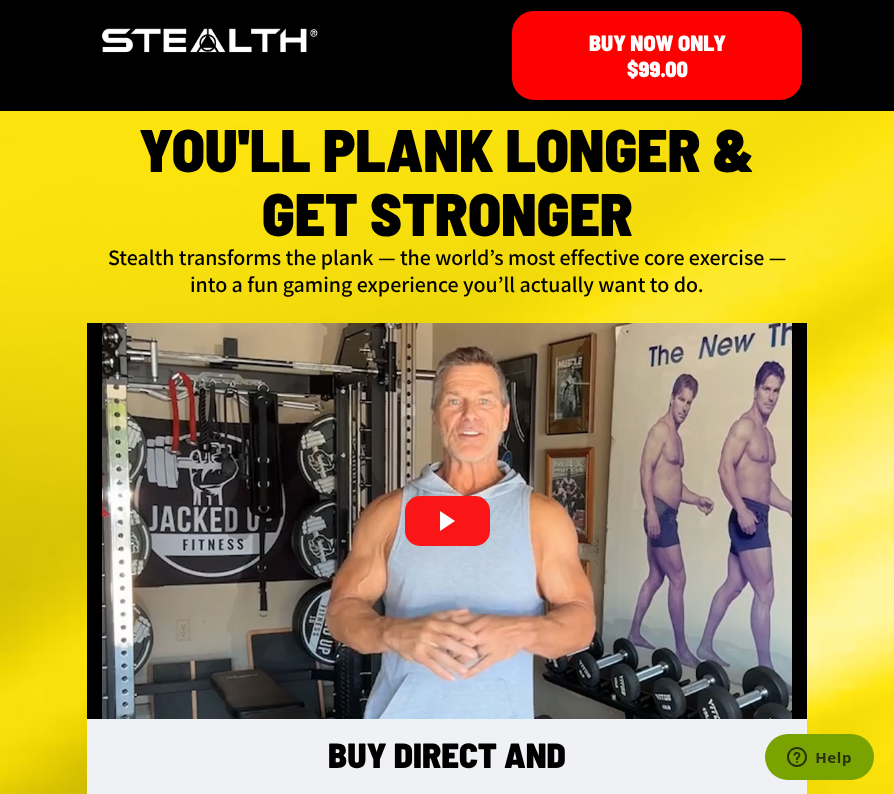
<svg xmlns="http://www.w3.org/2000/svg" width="894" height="794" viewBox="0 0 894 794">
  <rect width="100%" height="100%" fill="#000"/>
  <image x="101" y="28" width="217" height="25" href="img/1.png"/>
  <rect x="513" y="12" width="288" height="87" rx="21" fill="#f00" stroke="#fb0303" stroke-width="2"/>
  <image x="0" y="111" width="894" height="683" href="img/2.png"/>
  <path d="M87 719h720v75H87z" fill="#eff1f5"/>
  <path d="M87 323h720v396H87z" fill="#000"/>
  <image x="102" y="323" width="690" height="396" href="img/3.png"/>
  <rect x="405" y="496" width="85" height="50" rx="15" fill="#fa1616"/>
  <path d="M440 531V511L455 521Z" fill="#fff"/>
  <image x="765" y="734" width="109" height="46" href="img/4.png"/>
  <g font-family="Barlow Semi Condensed" font-size="22" font-weight="900" fill="#fff">
    <text x="589" y="51">BUY NOW ONLY</text>
    <text x="627" y="77">$99.00</text>
  </g>
  <g font-family="Barlow Semi Condensed" font-size="60" font-weight="900" fill="#000">
    <text x="139" y="172">YOU'LL PLANK LONGER &amp;</text>
    <text x="262" y="236">GET STRONGER</text>
  </g>
  <g font-family="Assistant" font-size="22" font-weight="600" fill="#000">
    <text x="108" y="265">Stealth transforms the plank — the world’s most effective core exercise —</text>
    <text x="190" y="292">into a fun gaming experience you’ll actually want to do.</text>
  </g>
  <text x="328" y="768" font-family="Barlow Semi Condensed" font-size="35" font-weight="900" fill="#000">BUY DIRECT AND</text>
</svg>
